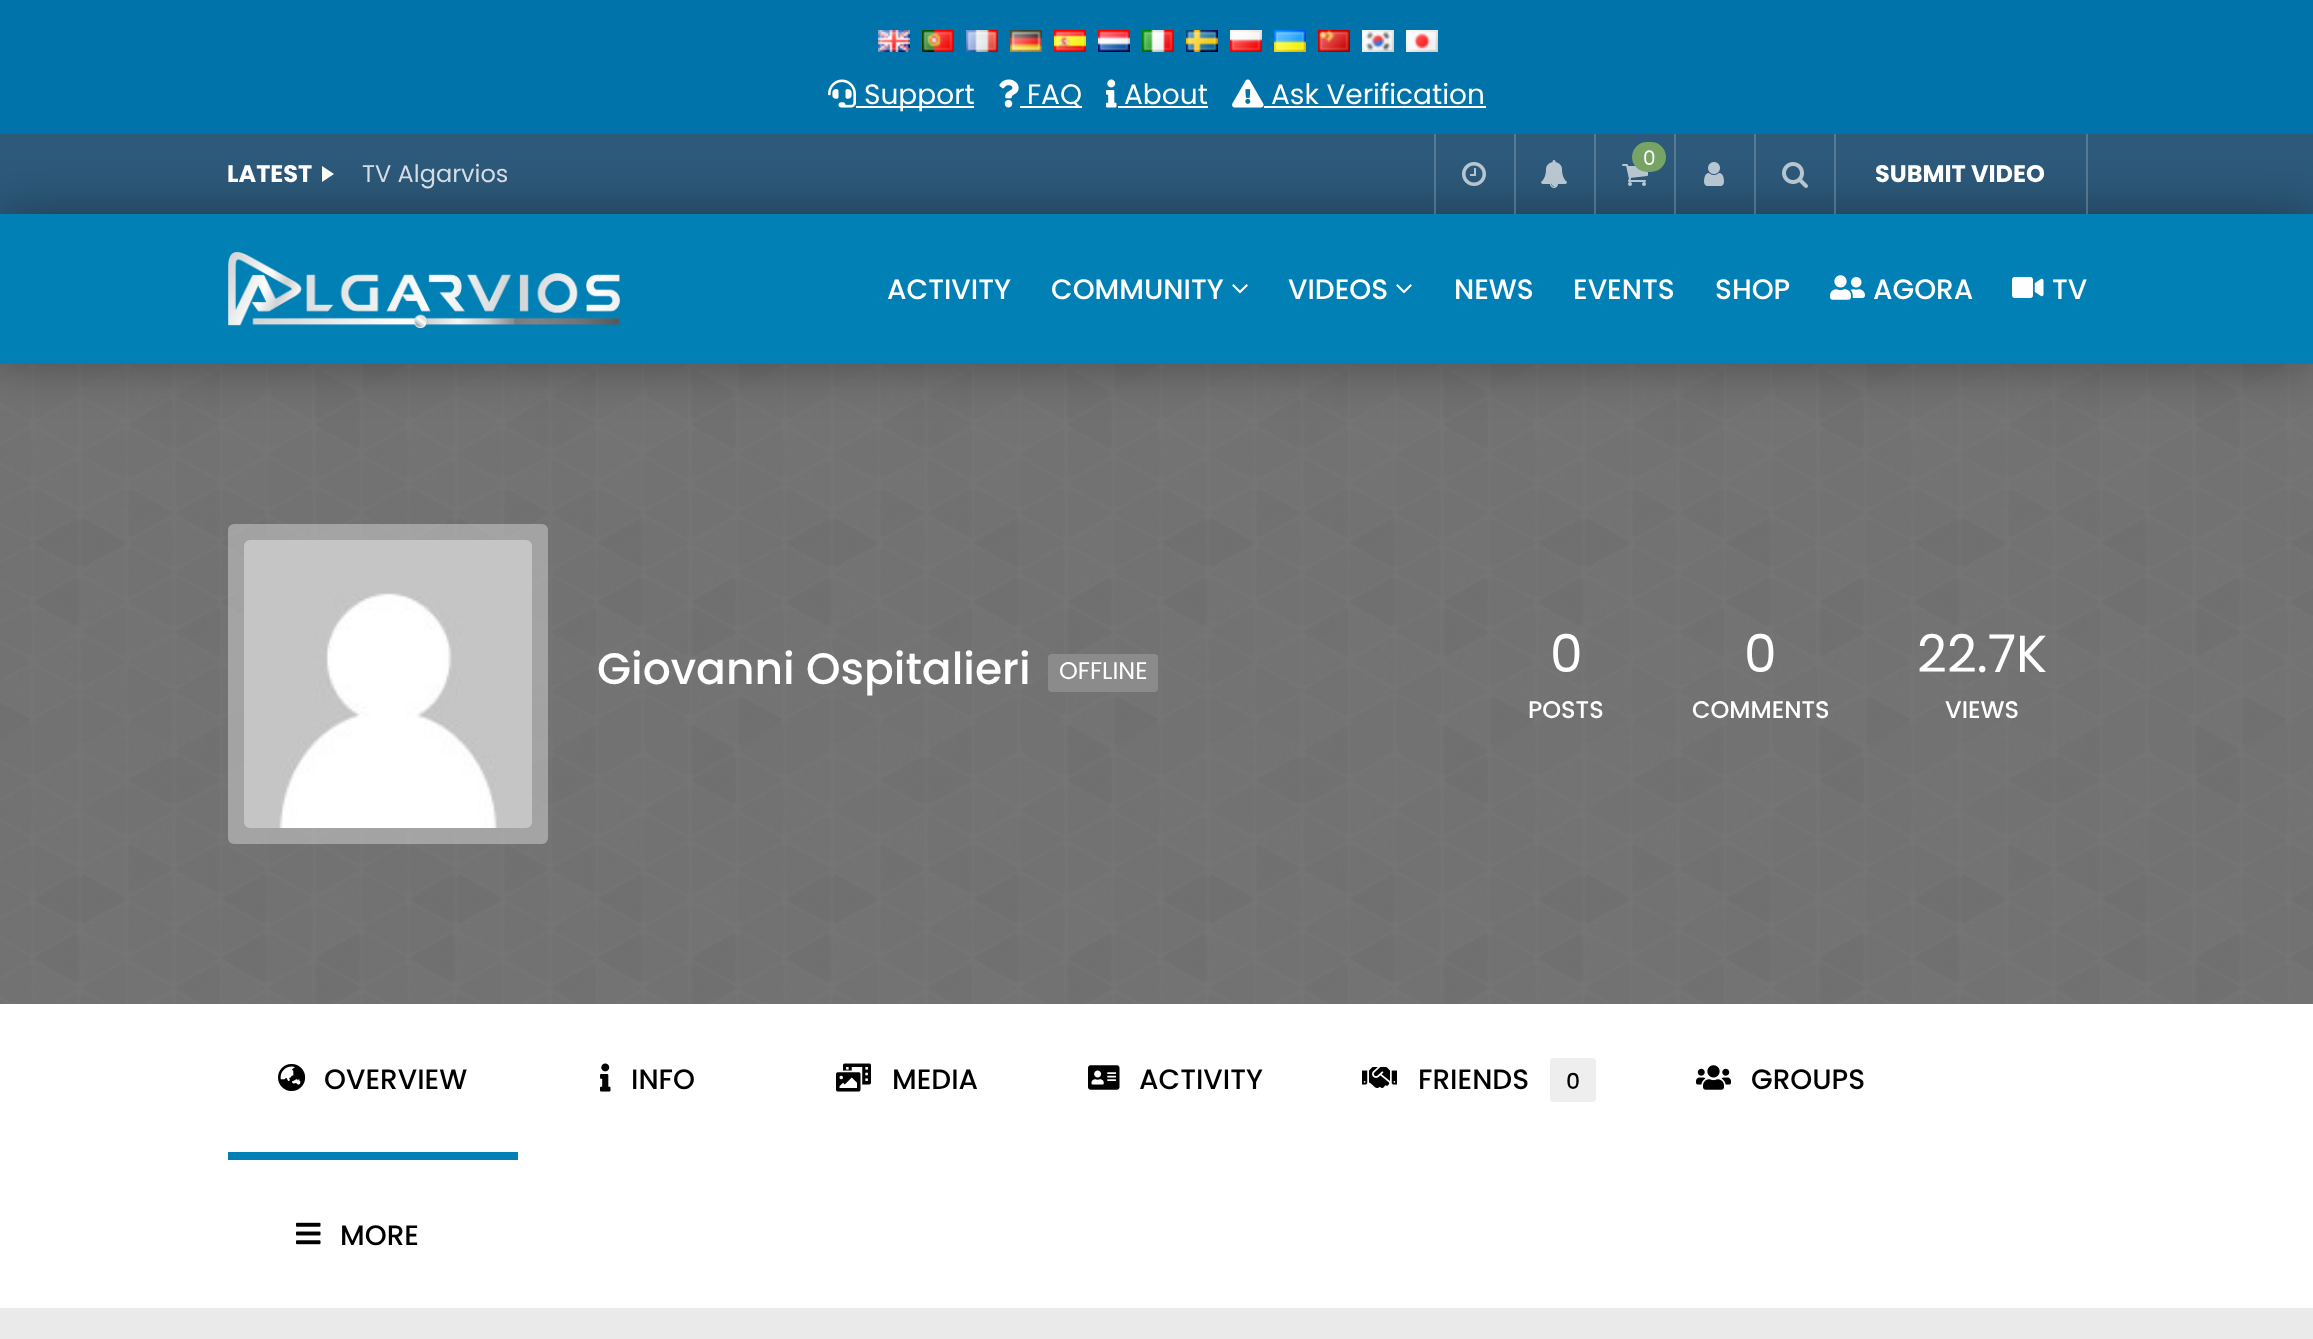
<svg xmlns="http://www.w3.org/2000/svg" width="2313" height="1339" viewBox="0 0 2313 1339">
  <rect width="100%" height="100%" fill="#0073aa"/>
  <image x="878" y="30" width="32" height="22" href="img/1.png"/>
  <image x="922" y="30" width="32" height="22" href="img/2.png"/>
  <image x="966" y="30" width="32" height="22" href="img/3.png"/>
  <image x="1010" y="30" width="32" height="22" href="img/4.png"/>
  <image x="1054" y="30" width="32" height="22" href="img/5.png"/>
  <image x="1098" y="30" width="32" height="22" href="img/6.png"/>
  <image x="1142" y="30" width="32" height="22" href="img/7.png"/>
  <image x="1186" y="30" width="32" height="22" href="img/8.png"/>
  <image x="1230" y="30" width="32" height="22" href="img/9.png"/>
  <image x="1274" y="30" width="32" height="22" href="img/10.png"/>
  <image x="1318" y="30" width="32" height="22" href="img/11.png"/>
  <image x="1362" y="30" width="32" height="22" href="img/12.png"/>
  <image x="1406" y="30" width="32" height="22" href="img/13.png"/>
  <image x="828" y="79" width="28" height="29" href="img/14.png"/>
  <path d="M856 106h118v2H856z" fill="#fff"/>
  <image x="999" y="79" width="20" height="29" href="img/15.png"/>
  <path d="M1020 106h62v2H1020z" fill="#fff"/>
  <image x="1106" y="79" width="11" height="29" href="img/16.png"/>
  <path d="M1118 106h90v2H1118z" fill="#fff"/>
  <image x="1232" y="79" width="32" height="29" href="img/17.png"/>
  <path d="M1264 106h222v2H1264z" fill="#fff"/>
  <path d="M0 134h2313v80H0z" fill="#2d597a"/>
  <path d="M0 364h2313v640H0z" fill="#757575"/>
  <image x="0" y="364" width="2313" height="640" href="img/27.png"/>
  <path d="M0 214h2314v150H0z" fill="#00000059" filter="blur(25px)"/>
  <path d="M322 182V166L334 174Z" fill="#fff"/>
  <path d="M1434 134h2v80H1434z" fill="#ffffff33"/>
  <image x="1462" y="162" width="24" height="24" href="img/18.png"/>
  <path d="M1514 134h2v80H1514z" fill="#ffffff33"/>
  <image x="1541" y="160" width="26" height="28" href="img/19.png"/>
  <path d="M1594 134h2v80H1594z" fill="#ffffff33"/>
  <image x="1622" y="164" width="26" height="22" href="img/20.png"/>
  <rect x="1632" y="142" width="34" height="30" rx="15" fill="#77a464"/>
  <path d="M1674 134h2v80H1674z" fill="#ffffff33"/>
  <image x="1704" y="162" width="20" height="24" href="img/21.png"/>
  <path d="M1754 134h2v80H1754z" fill="#ffffff33"/>
  <image x="1782" y="162" width="26" height="26" href="img/22.png"/>
  <path d="M2086 134h2v80H2086z" fill="#ffffff33"/>
  <path d="M1834 134h2v80H1834z" fill="#ffffff33"/>
  <path d="M0 214h2313v150H0z" fill="#0080b4"/>
  <image x="228" y="252" width="392" height="76" href="img/23.png"/>
  <image x="1232" y="284" width="16" height="10" href="img/24.png"/>
  <image x="1396" y="284" width="16" height="10" href="img/24.png"/>
  <image x="1830" y="275" width="35" height="25" href="img/25.png"/>
  <image x="2012" y="277" width="32" height="21" href="img/26.png"/>
  <path d="M0 1308h2313v31H0z" fill="#eaeaea"/>
  <rect x="228" y="524" width="320" height="320" rx="6" fill="#ffffff59"/>
  <image x="244" y="540" width="288" height="288" href="img/28.png"/>
  <rect x="1048" y="654" width="110" height="38" rx="4" fill="#8b8b8b"/>
  <path d="M0 1004h2313v304H0z" fill="#fff"/>
  <path d="M228 1152h290v8H228z" fill="#0080b4"/>
  <image x="278" y="1063" width="28" height="29" href="img/29.png"/>
  <image x="600" y="1063" width="11" height="29" href="img/30.png"/>
  <image x="836" y="1063" width="35" height="29" href="img/31.png"/>
  <image x="1088" y="1065" width="32" height="25" href="img/32.png"/>
  <image x="1362" y="1067" width="35" height="21" href="img/33.png"/>
  <rect x="1550" y="1058" width="46" height="44" rx="4" fill="#eee"/>
  <image x="1696" y="1065" width="35" height="25" href="img/34.png"/>
  <image x="296" y="1222" width="25" height="23" href="img/35.png"/>
  <g font-family="Poppins" font-size="28" fill="#fff">
    <text x="864" y="104">Support</text>
    <text x="1027" y="104">FAQ</text>
    <text x="1124" y="104">About</text>
    <text x="1271" y="104">Ask Verification</text>
  </g>
  <text x="227" y="182" font-family="Poppins" font-size="24" font-weight="bold" fill="#fff">LATEST</text>
  <text x="362" y="182" font-family="Poppins" font-size="24" fill="#d5dde4">TV Algarvios</text>
  <text x="1643" y="165" font-family="Poppins" font-size="20" fill="#fff">0</text>
  <text x="1875" y="182" font-family="Poppins" font-size="24" font-weight="bold" fill="#fff">SUBMIT VIDEO</text>
  <g font-family="Poppins" font-size="28" font-weight="500" fill="#fff">
    <text x="887" y="299">ACTIVITY</text>
    <text x="1051" y="299">COMMUNITY</text>
    <text x="1288" y="299">VIDEOS</text>
    <text x="1454" y="299">NEWS</text>
    <text x="1573" y="299">EVENTS</text>
    <text x="1715" y="299">SHOP</text>
    <text x="1873" y="299">AGORA</text>
    <text x="2052" y="299">TV</text>
  </g>
  <text x="597" y="684" font-family="Poppins" font-size="44" font-weight="500" fill="#fff">Giovanni Ospitalieri</text>
  <text x="1059" y="679" font-family="Poppins" font-size="24" fill="#fff">OFFLINE</text>
  <text x="1550" y="672" font-family="Poppins" font-size="52" fill="#fff">0</text>
  <text x="1528" y="718" font-family="Poppins" font-size="24" font-weight="500" fill="#fff">POSTS</text>
  <text x="1744" y="672" font-family="Poppins" font-size="52" fill="#fff">0</text>
  <text x="1692" y="718" font-family="Poppins" font-size="24" font-weight="500" fill="#fff">COMMENTS</text>
  <text x="1917" y="672" font-family="Poppins" font-size="52" fill="#fff">22.7K</text>
  <text x="1945" y="718" font-family="Poppins" font-size="24" font-weight="500" fill="#fff">VIEWS</text>
  <g font-family="Poppins" font-size="28" font-weight="500" fill="#000">
    <text x="324" y="1089">OVERVIEW</text>
    <text x="631" y="1089">INFO</text>
    <text x="892" y="1089">MEDIA</text>
    <text x="1139" y="1089">ACTIVITY</text>
    <text x="1418" y="1089">FRIENDS</text>
  </g>
  <text x="1566" y="1089" font-family="Poppins" font-size="22" font-weight="500" fill="#000">0</text>
  <g font-family="Poppins" font-size="28" font-weight="500" fill="#000">
    <text x="1751" y="1089">GROUPS</text>
    <text x="340" y="1245">MORE</text>
  </g>
</svg>
